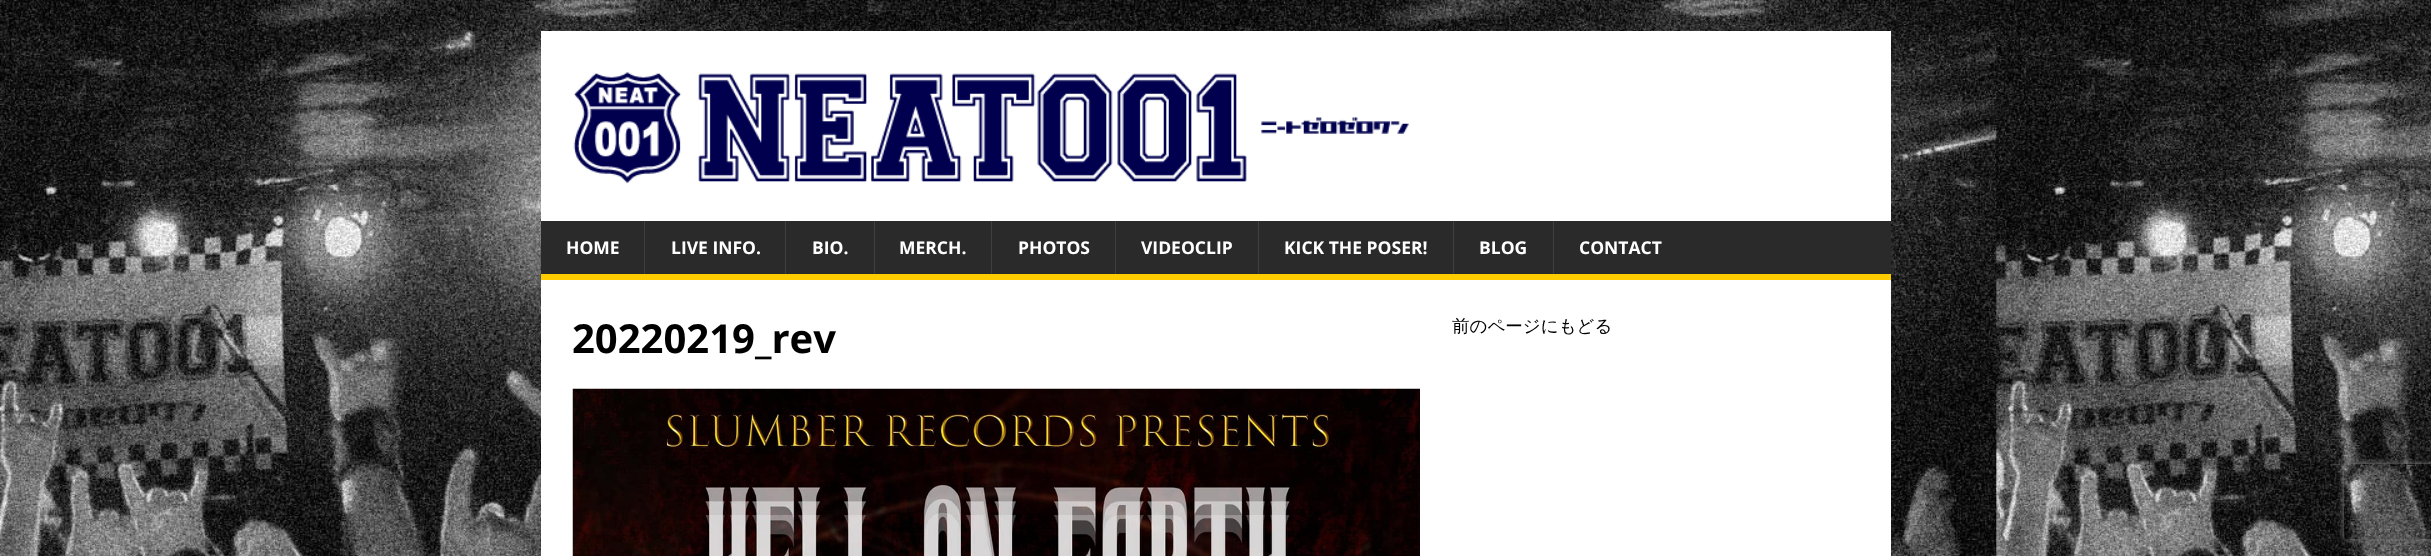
<svg xmlns="http://www.w3.org/2000/svg" width="2431" height="556" viewBox="0 0 2431 556">
  <defs>
    <clipPath id="clip1"><path d="M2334 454H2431V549H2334ZM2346.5 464H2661.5C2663 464 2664 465 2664 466.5V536.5C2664 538 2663 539 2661.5 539H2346.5C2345 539 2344 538 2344 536.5V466.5C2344 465 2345 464 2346.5 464Z" clip-rule="evenodd"/></clipPath>
  </defs>
  <rect width="100%" height="100%" fill="#fff"/>
  <image x="0" y="0" width="2431" height="556" href="img/1.png"/>
  <path d="M541 31h1350v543H541z" fill="#3232322b" filter="blur(6px)"/>
  <path d="M541 31h1350v190H541z" fill="#fff"/>
  <image x="573" y="72" width="836" height="112" href="img/2.png"/>
  <path d="M541 221h1350v53H541z" fill="#2a2a2a"/>
  <path d="M541 274h1350v6H541z" fill="#fc0"/>
  <path d="M644 221h1v53H644z" fill="#3f3f3f"/>
  <path d="M785 221h1v53H785z" fill="#3f3f3f"/>
  <path d="M874 221h1v53H874z" fill="#3f3f3f"/>
  <path d="M991 221h1v53H991z" fill="#3f3f3f"/>
  <path d="M1115 221h1v53H1115z" fill="#3f3f3f"/>
  <path d="M1258 221h1v53H1258z" fill="#3f3f3f"/>
  <path d="M1453 221h1v53H1453z" fill="#3f3f3f"/>
  <path d="M1553 221h1v53H1553z" fill="#3f3f3f"/>
  <path d="M541 280h1350v276H541z" fill="#fff"/>
  <image x="572" y="388" width="848" height="168" href="img/3.png"/>
  <g clip-path="url(#clip1)">
    <rect x="2344" y="464" width="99" height="75" rx="2.5" fill="#808080" filter="blur(3px)"/>
  </g>
  <g font-family="Open Sans" font-size="17.5" font-weight="bold" fill="#fff">
    <text x="566" y="254">HOME</text>
    <text x="671" y="254">LIVE INFO.</text>
    <text x="812" y="254">BIO.</text>
    <text x="899" y="254">MERCH.</text>
    <text x="1018" y="254">PHOTOS</text>
    <text x="1141" y="254">VIDEOCLIP</text>
    <text x="1284" y="254">KICK THE POSER!</text>
    <text x="1479" y="254">BLOG</text>
    <text x="1579" y="254">CONTACT</text>
  </g>
  <text x="572" y="353" font-family="Open Sans" font-size="40" font-weight="bold" fill="#000">20220219_rev</text>
  <text x="1452" y="332" font-family="WenQuanYi Zen Hei" font-size="17.5" font-weight="500" fill="#000">前のページにもどる</text>
</svg>
